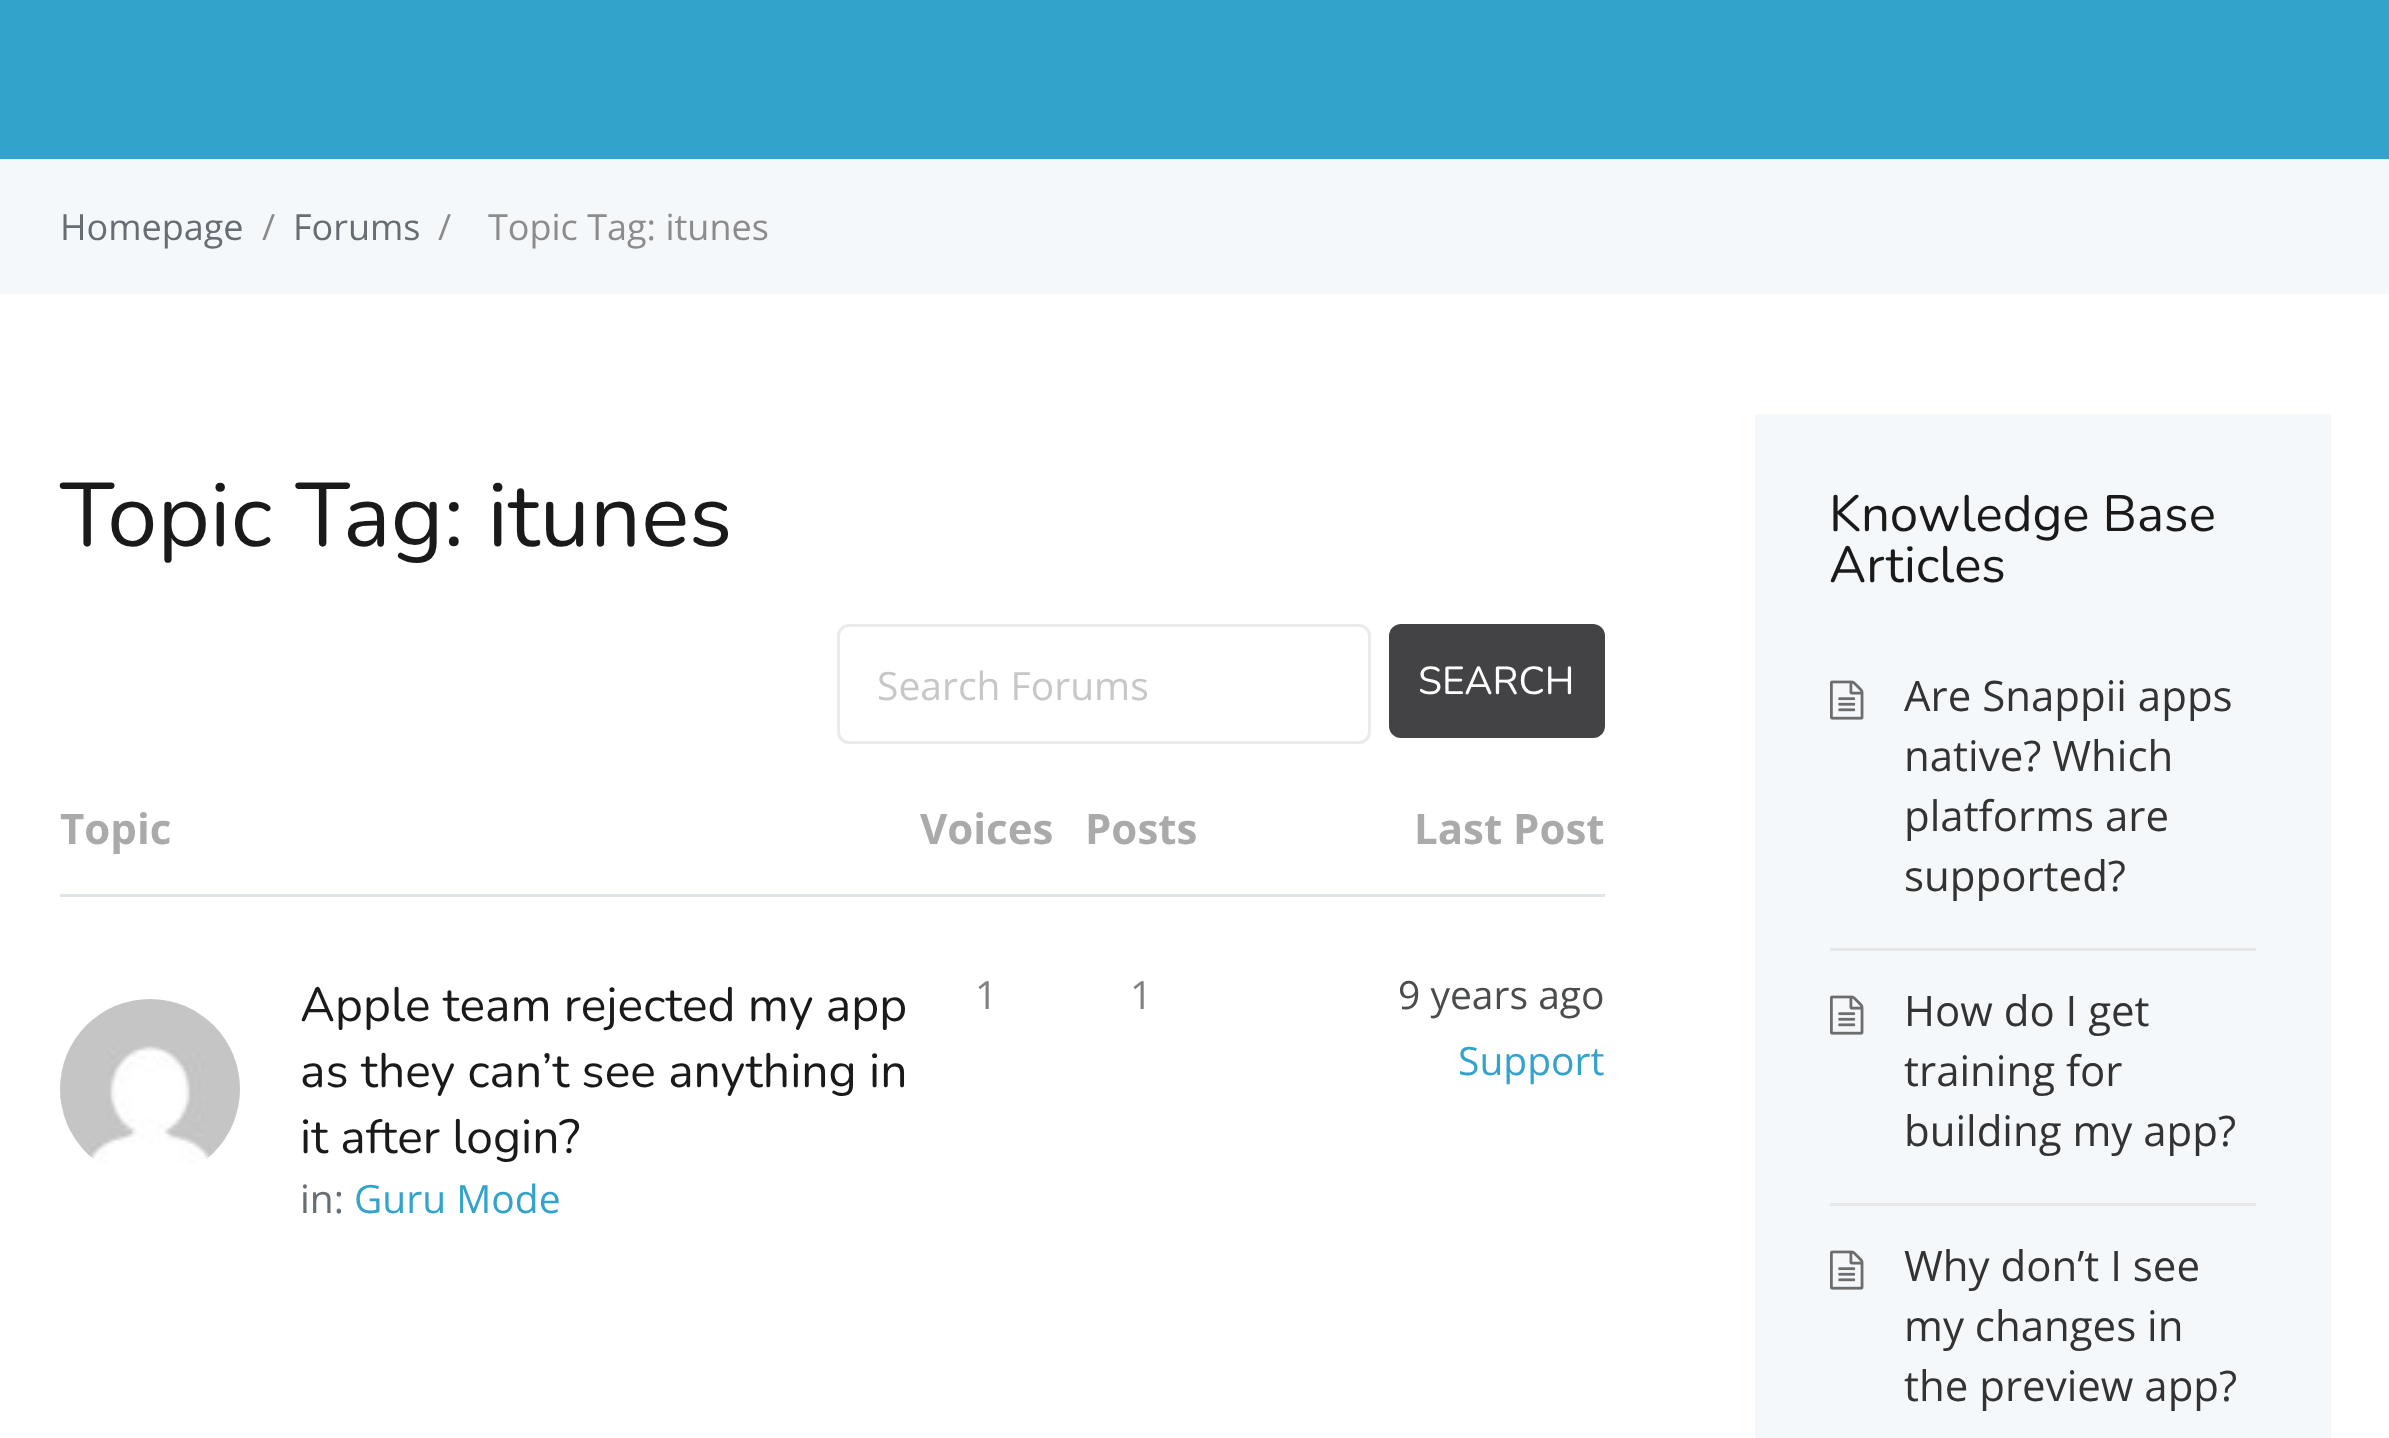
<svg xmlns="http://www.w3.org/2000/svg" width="2389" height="1438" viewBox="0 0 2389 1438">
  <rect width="100%" height="100%" fill="#fff"/>
  <path d="M0 0h2389v159H0z" fill="#32a3cb"/>
  <path d="M0 159h2389v135H0z" fill="#f5f8fa"/>
  <rect x="838.5" y="625.5" width="531" height="117" rx="10.5" fill="none" stroke="#ebebeb" stroke-width="3"/>
  <rect x="1389" y="624" width="216" height="114" rx="12" fill="#434345"/>
  <path d="M60 894h1545v3H60z" fill="#dfe4e6"/>
  <image x="60" y="999" width="180" height="164" href="img/1.png"/>
  <path d="M1755 414h576v1024H1755z" fill="#f5f8fa"/>
  <path d="M1830 948h426v3H1830z" fill="#e5e7e9"/>
  <image x="1830" y="680" width="34" height="40" href="img/2.png"/>
  <path d="M1830 1203h426v3H1830z" fill="#e5e7e9"/>
  <image x="1830" y="995" width="34" height="40" href="img/2.png"/>
  <image x="1830" y="1250" width="34" height="40" href="img/2.png"/>
  <text x="60" y="240" font-family="Open Sans" font-size="36" fill="#666d73">Homepage</text>
  <text x="262" y="240" font-family="Open Sans" font-size="36" fill="#8c8c8c">/</text>
  <text x="293" y="240" font-family="Open Sans" font-size="36" fill="#666d73">Forums</text>
  <g font-family="Open Sans" font-size="36" fill="#8c8c8c">
    <text x="438" y="240">/</text>
    <text x="488" y="240">Topic Tag: itunes</text>
  </g>
  <text x="60" y="546" font-family="Nunito" font-size="90" font-weight="200" fill="#1a1a1a">Topic Tag: itunes</text>
  <text x="877" y="700" font-family="Open Sans" font-size="39" fill="#c7c7c7">Search Forums</text>
  <text x="1418" y="694" font-family="Nunito" font-size="39" font-weight="200" fill="#fff">SEARCH</text>
  <g font-family="Open Sans" font-size="42" font-weight="bold" fill="#aaa">
    <text x="60" y="844">Topic</text>
    <text x="920" y="844">Voices</text>
    <text x="1085" y="844">Posts</text>
    <text x="1414" y="844">Last Post</text>
  </g>
  <g font-family="Nunito" font-size="48" font-weight="200" fill="#1a1a1a">
    <text x="300" y="1021">Apple team rejected my app</text>
    <text x="300" y="1087">as they can’t see anything in</text>
    <text x="300" y="1153">it after login?</text>
  </g>
  <text x="300" y="1213" font-family="Open Sans" font-size="39" fill="#666d73">in:</text>
  <text x="354" y="1213" font-family="Open Sans" font-size="39" fill="#32a3cb">Guru Mode</text>
  <g font-family="Open Sans" font-size="39" fill="#808080">
    <text x="975" y="1009">1</text>
    <text x="1130" y="1009">1</text>
  </g>
  <text x="1398" y="1009" font-family="Open Sans" font-size="39" fill="#4b4d4d">9 years ago</text>
  <text x="1458" y="1075" font-family="Open Sans" font-size="39" fill="#32a3cb">Support</text>
  <g font-family="Nunito" font-size="51" font-weight="200" fill="#1a1a1a">
    <text x="1829" y="531">Knowledge Base</text>
    <text x="1829" y="582">Articles</text>
  </g>
  <g font-family="Open Sans" font-size="42" fill="#333">
    <text x="1904" y="711">Are Snappii apps</text>
    <text x="1904" y="771">native? Which</text>
    <text x="1904" y="831">platforms are</text>
    <text x="1904" y="891">supported?</text>
    <text x="1904" y="1026">How do I get</text>
    <text x="1904" y="1086">training for</text>
    <text x="1904" y="1146">building my app?</text>
    <text x="1904" y="1281">Why don’t I see</text>
    <text x="1904" y="1341">my changes in</text>
    <text x="1904" y="1401">the preview app?</text>
  </g>
</svg>
